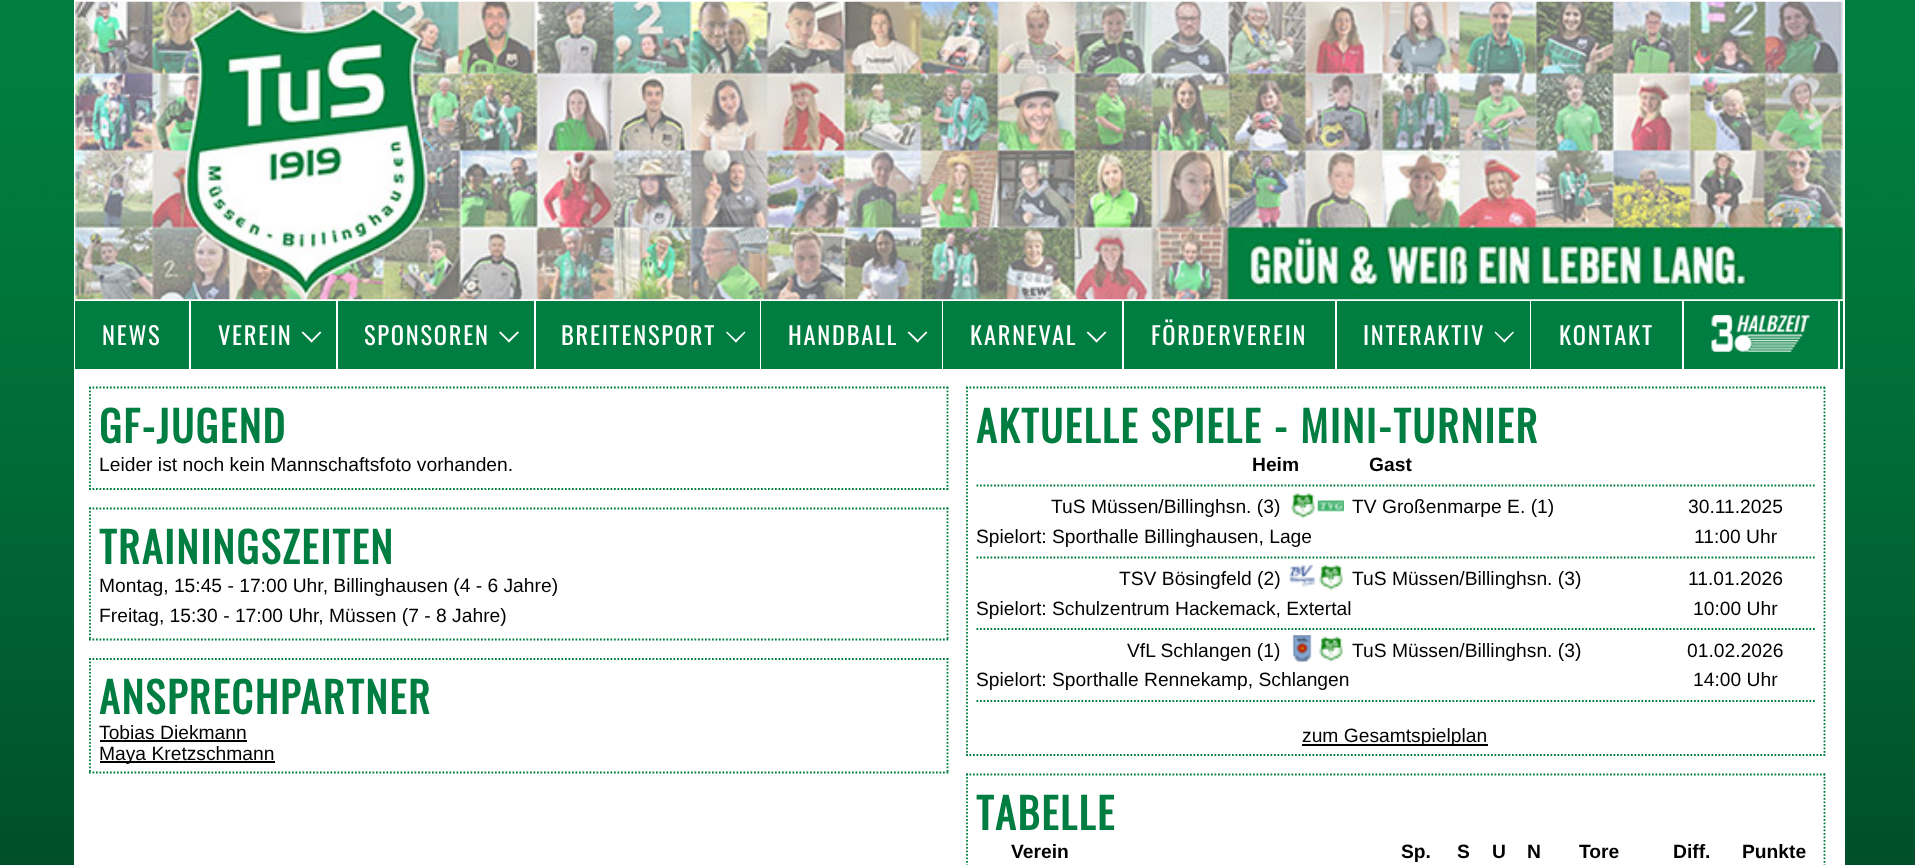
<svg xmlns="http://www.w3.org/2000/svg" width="1915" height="865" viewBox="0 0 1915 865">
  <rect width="100%" height="100%" fill="#fff"/>
  <image x="0" y="0" width="1915" height="865" href="img/1.png"/>
  <path d="M74 0h1771v865H74z" fill="#fff"/>
  <image x="75" y="1" width="1768" height="299" href="img/2.png"/>
  <path d="M75 301h1768v68H75z" fill="#007d40"/>
  <path d="M189 301h2v68H189z" fill="#fff"/>
  <path d="M336 301h2v68H336z" fill="#fff"/>
  <path d="M320 331.5L321.5 332.5L311.5 342.5L310.5 341Z" fill="#fff"/>
  <path d="M303 331.5L313 341L311.5 342.5L301.5 332.5Z" fill="#fff"/>
  <path d="M534 301h2v68H534z" fill="#fff"/>
  <path d="M517.5 331.5L519 332.5L509 342.5L507.5 341Z" fill="#fff"/>
  <path d="M500.5 331.5L510 341L509 342.5L499 332.5Z" fill="#fff"/>
  <path d="M760 301h1v68H760z" fill="#fff"/>
  <path d="M744.5 331.5L745.5 332.5L736 342.5L734.5 341Z" fill="#fff"/>
  <path d="M727 331.5L737 341L736 342.5L726 332.5Z" fill="#fff"/>
  <path d="M942 301h1v68H942z" fill="#fff"/>
  <path d="M926 331.5L927.5 332.5L917.5 342.5L916.5 341Z" fill="#fff"/>
  <path d="M909 331.5L919 341L917.5 342.5L907.5 332.5Z" fill="#fff"/>
  <path d="M1122 301h2v68H1122z" fill="#fff"/>
  <path d="M1105 331.5L1106.5 332.5L1096.5 342.5L1095.5 341Z" fill="#fff"/>
  <path d="M1088 331.5L1098 341L1096.5 342.5L1086.5 332.5Z" fill="#fff"/>
  <path d="M1335 301h2v68H1335z" fill="#fff"/>
  <path d="M1530 301h1v68H1530z" fill="#fff"/>
  <path d="M1513 331.5L1514 332.5L1504.5 342.5L1503 341Z" fill="#fff"/>
  <path d="M1495.5 331.5L1505.5 341L1504.5 342.5L1494.5 332.5Z" fill="#fff"/>
  <path d="M1682 301h2v68H1682z" fill="#fff"/>
  <path d="M1838 301h2v68H1838z" fill="#fff"/>
  <image x="1711" y="315" width="99" height="37" href="img/3.png"/>
  <path d="M89 387.5H948.5" fill="none" stroke="#007d40" stroke-width="1.8" stroke-dasharray="1.75 1.75"/>
  <path d="M947.5 387V490" fill="none" stroke="#007d40" stroke-width="1.8" stroke-dasharray="1.75 1.75"/>
  <path d="M89 489H948.5" fill="none" stroke="#007d40" stroke-width="1.8" stroke-dasharray="1.75 1.75"/>
  <path d="M90 387V490" fill="none" stroke="#007d40" stroke-width="1.8" stroke-dasharray="1.75 1.75"/>
  <path d="M89 508.5H948.5" fill="none" stroke="#007d40" stroke-width="1.8" stroke-dasharray="1.75 1.75"/>
  <path d="M947.5 507.5V640.5" fill="none" stroke="#007d40" stroke-width="1.8" stroke-dasharray="1.75 1.75"/>
  <path d="M89 639.5H948.5" fill="none" stroke="#007d40" stroke-width="1.8" stroke-dasharray="1.75 1.75"/>
  <path d="M90 507.5V640.5" fill="none" stroke="#007d40" stroke-width="1.8" stroke-dasharray="1.75 1.75"/>
  <path d="M89 659H948.5" fill="none" stroke="#007d40" stroke-width="1.8" stroke-dasharray="1.75 1.75"/>
  <path d="M947.5 658V773.5" fill="none" stroke="#007d40" stroke-width="1.8" stroke-dasharray="1.75 1.75"/>
  <path d="M89 772.5H948.5" fill="none" stroke="#007d40" stroke-width="1.8" stroke-dasharray="1.75 1.75"/>
  <path d="M90 658V773.5" fill="none" stroke="#007d40" stroke-width="1.8" stroke-dasharray="1.75 1.75"/>
  <path d="M100 740h147v2H100z" fill="#000"/>
  <path d="M100 761h175v2H100z" fill="#000"/>
  <path d="M966 387.5H1825" fill="none" stroke="#007d40" stroke-width="1.8" stroke-dasharray="1.75 1.75"/>
  <path d="M1824.5 387V756" fill="none" stroke="#007d40" stroke-width="1.8" stroke-dasharray="1.75 1.75"/>
  <path d="M966 755H1825" fill="none" stroke="#007d40" stroke-width="1.8" stroke-dasharray="1.75 1.75"/>
  <path d="M967 387V756" fill="none" stroke="#007d40" stroke-width="1.8" stroke-dasharray="1.75 1.75"/>
  <path d="M976.5 485.5H1815" fill="none" stroke="#007d40" stroke-width="1.8" stroke-dasharray="1.75 1.75"/>
  <image x="1291" y="493" width="24" height="25" href="img/4.png"/>
  <image x="1317" y="500" width="27" height="12" href="img/5.png"/>
  <path d="M976.5 557.5H1815" fill="none" stroke="#007d40" stroke-width="1.8" stroke-dasharray="1.75 1.75"/>
  <image x="1289" y="563" width="27" height="24" href="img/6.png"/>
  <image x="1319" y="564" width="24" height="26" href="img/7.png"/>
  <path d="M976.5 629H1815" fill="none" stroke="#007d40" stroke-width="1.8" stroke-dasharray="1.75 1.75"/>
  <image x="1292" y="635" width="20" height="27" href="img/8.png"/>
  <image x="1319" y="636" width="24" height="26" href="img/9.png"/>
  <path d="M976.5 701H1815" fill="none" stroke="#007d40" stroke-width="1.8" stroke-dasharray="1.75 1.75"/>
  <path d="M1302 744h186v2H1302z" fill="#000"/>
  <path d="M966 774.5H1825" fill="none" stroke="#007d40" stroke-width="1.8" stroke-dasharray="1.75 1.75"/>
  <path d="M1824.5 773.5V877" fill="none" stroke="#007d40" stroke-width="1.8" stroke-dasharray="1.75 1.75"/>
  <path d="M967 773.5V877" fill="none" stroke="#007d40" stroke-width="1.8" stroke-dasharray="1.75 1.75"/>
  <g font-family="Oswald" font-size="24.5" letter-spacing="1.75" fill="#fff">
    <text x="102" y="345">NEWS</text>
    <text x="218" y="345">VEREIN</text>
    <text x="364" y="345">SPONSOREN</text>
    <text x="561" y="345">BREITENSPORT</text>
    <text x="788" y="345">HANDBALL</text>
    <text x="970" y="345">KARNEVAL</text>
    <text x="1151" y="345">FÖRDERVEREIN</text>
    <text x="1363" y="345">INTERAKTIV</text>
    <text x="1559" y="345">KONTAKT</text>
  </g>
  <text x="99" y="443" font-family="Oswald" font-size="42" font-weight="bold" letter-spacing="1.75" fill="#007d40">GF-JUGEND</text>
  <text x="99" y="471" font-family="Liberation Sans" font-size="19.25" fill="#000">Leider ist noch kein Mannschaftsfoto vorhanden.</text>
  <text x="99" y="564" font-family="Oswald" font-size="42" font-weight="bold" letter-spacing="1.75" fill="#007d40">TRAININGSZEITEN</text>
  <g font-family="Liberation Sans" font-size="19.25" fill="#000">
    <text x="99" y="592">Montag, 15:45 - 17:00 Uhr, Billinghausen (4 - 6 Jahre)</text>
    <text x="99" y="622">Freitag, 15:30 - 17:00 Uhr, Müssen (7 - 8 Jahre)</text>
  </g>
  <text x="99" y="714" font-family="Oswald" font-size="42" font-weight="bold" letter-spacing="1.75" fill="#007d40">ANSPRECHPARTNER</text>
  <g font-family="Liberation Sans" font-size="19.25" fill="#000">
    <text x="99" y="739">Tobias Diekmann</text>
    <text x="99" y="760">Maya Kretzschmann</text>
  </g>
  <text x="976" y="443" font-family="Oswald" font-size="42" font-weight="bold" letter-spacing="1.75" fill="#007d40">AKTUELLE SPIELE - MINI-TURNIER</text>
  <g font-family="Liberation Sans" font-size="19.25" font-weight="bold" fill="#000">
    <text x="1252" y="471">Heim</text>
    <text x="1369" y="471">Gast</text>
  </g>
  <g font-family="Liberation Sans" font-size="19.25" fill="#000">
    <text x="1051" y="513">TuS Müssen/Billinghsn. (3)</text>
    <text x="1352" y="513">TV Großenmarpe E. (1)</text>
    <text x="1688" y="513">30.11.2025</text>
    <text x="976" y="543">Spielort: Sporthalle Billinghausen, Lage</text>
    <text x="1694" y="543">11:00 Uhr</text>
    <text x="1119" y="585">TSV Bösingfeld (2)</text>
    <text x="1352" y="585">TuS Müssen/Billinghsn. (3)</text>
    <text x="1688" y="585">11.01.2026</text>
    <text x="976" y="615">Spielort: Schulzentrum Hackemack, Extertal</text>
    <text x="1693" y="615">10:00 Uhr</text>
    <text x="1127" y="657">VfL Schlangen (1)</text>
    <text x="1352" y="657">TuS Müssen/Billinghsn. (3)</text>
    <text x="1687" y="657">01.02.2026</text>
    <text x="976" y="686">Spielort: Sporthalle Rennekamp, Schlangen</text>
    <text x="1693" y="686">14:00 Uhr</text>
    <text x="1302" y="742">zum Gesamtspielplan</text>
  </g>
  <text x="976" y="830" font-family="Oswald" font-size="42" font-weight="bold" letter-spacing="1.75" fill="#007d40">TABELLE</text>
  <g font-family="Liberation Sans" font-size="19.25" font-weight="bold" fill="#000">
    <text x="1011" y="858">Verein</text>
    <text x="1401" y="858">Sp.</text>
    <text x="1457" y="858">S</text>
    <text x="1492" y="858">U</text>
    <text x="1527" y="858">N</text>
    <text x="1579" y="858">Tore</text>
    <text x="1673" y="858">Diff.</text>
    <text x="1742" y="858">Punkte</text>
  </g>
</svg>
